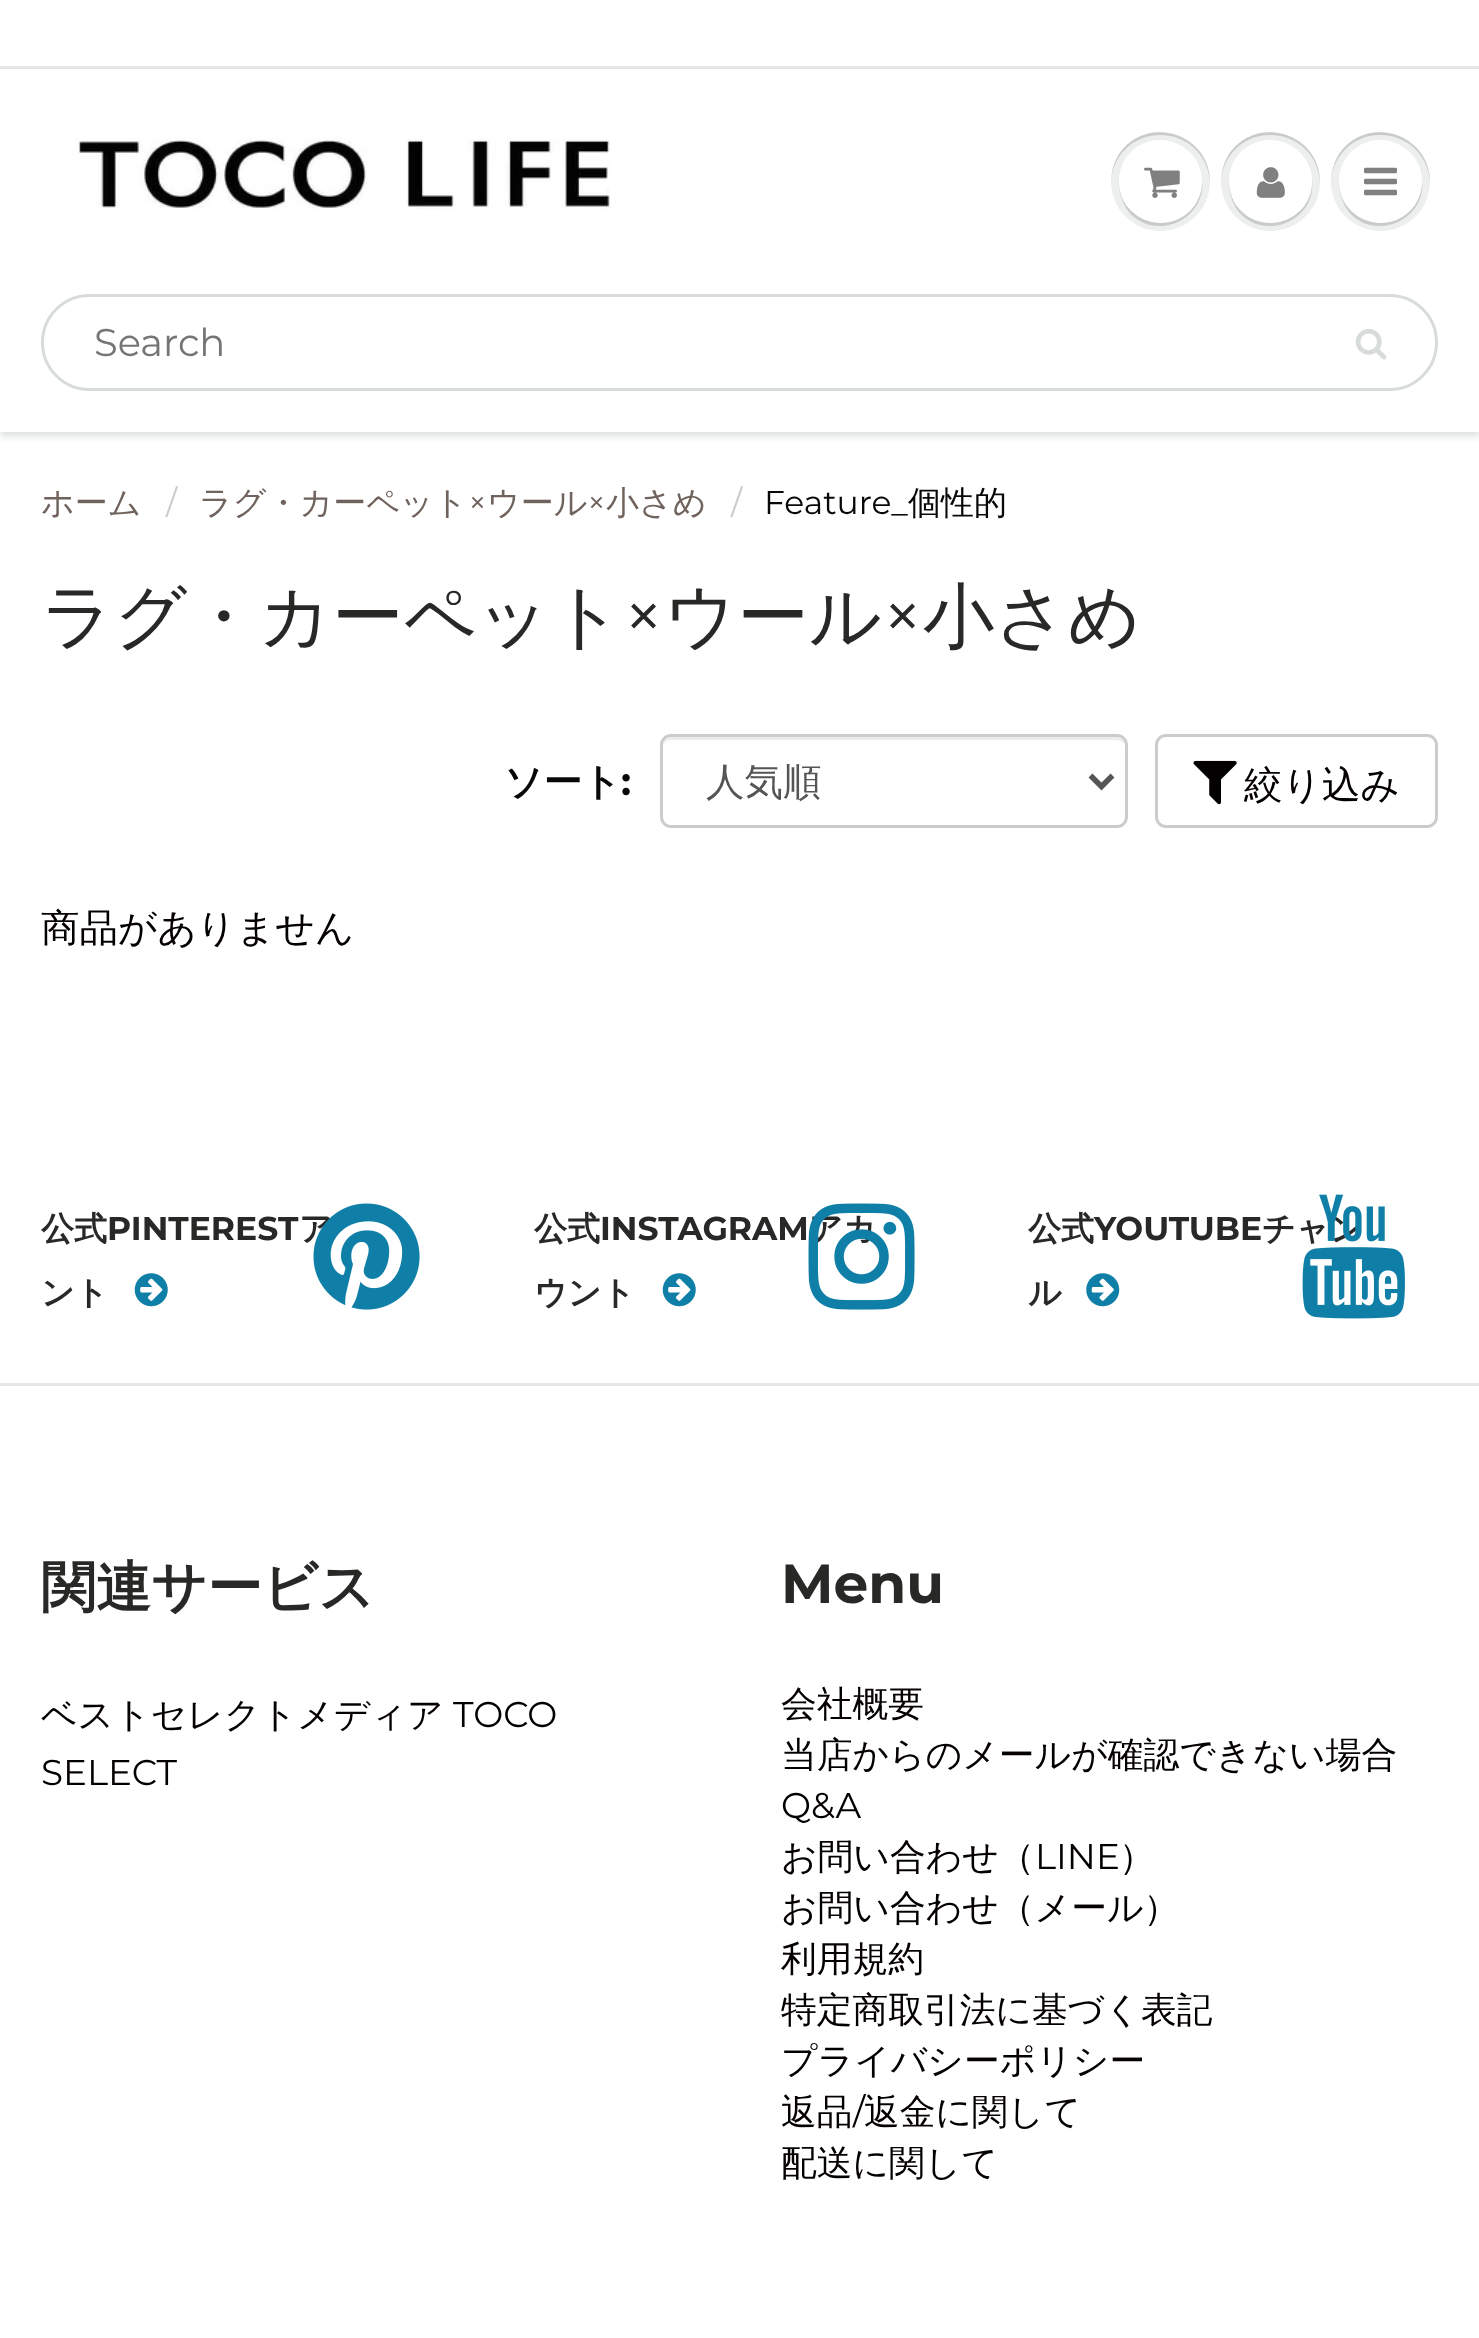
<svg xmlns="http://www.w3.org/2000/svg" width="1479" height="2338" viewBox="0 0 1479 2338">
  <rect width="100%" height="100%" fill="#fff"/>
  <path d="M0 72h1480v365H0z" fill="#0b191c1f" filter="blur(3px)"/>
  <path d="M0 69h1479v363H0z" fill="#fff"/>
  <path d="M0 66h1479v3H0z" fill="#e6e6e6"/>
  <image x="76" y="138" width="534" height="71" href="img/1.png"/>
  <circle cx="1160.5" cy="181.5" r="49.5" fill="#edefef"/>
  <path d="M1160 135C1188 135 1209 156 1210 183C1211 134 1147 113 1119 154C1114 162 1111 173 1111 183C1112 156 1133 135 1160 135Z" fill="#c9cbcb"/>
  <path d="M1119 180C1118 189 1121 199 1126 208C1150 244 1207 222 1202 180C1202 188 1200 197 1195 205C1172 239 1117 221 1119 180Z" fill="#c9cbcb"/>
  <circle cx="1160.5" cy="181.5" r="41.5" fill="#fff"/>
  <path d="M1160 143C1183 143 1201 160 1202 183C1203 142 1149 124 1126 158C1121 165 1119 174 1119 183C1120 160 1138 143 1160 143Z" fill="#fff"/>
  <image x="1144" y="167" width="36" height="31" href="img/2.png"/>
  <circle cx="1270.5" cy="181.5" r="49.5" fill="#edefef"/>
  <path d="M1270 135C1298 135 1319 156 1320 183C1321 134 1257 113 1229 154C1224 162 1221 173 1221 183C1222 156 1243 135 1270 135Z" fill="#c9cbcb"/>
  <path d="M1229 180C1228 189 1231 199 1236 208C1260 244 1317 222 1312 180C1314 221 1259 239 1236 205C1231 197 1229 188 1229 180Z" fill="#c9cbcb"/>
  <circle cx="1270.5" cy="181.5" r="41.5" fill="#fff"/>
  <path d="M1270 143C1293 143 1311 160 1312 183C1313 142 1259 124 1236 158C1231 165 1229 174 1229 183C1230 160 1248 143 1270 143Z" fill="#fff"/>
  <image x="1256" y="167" width="29" height="31" href="img/3.png"/>
  <circle cx="1380.5" cy="181.5" r="49.5" fill="#edefef"/>
  <path d="M1380 135C1408 135 1429 156 1430 183C1431 134 1367 113 1339 154C1334 162 1331 173 1331 183C1332 156 1353 135 1380 135Z" fill="#c9cbcb"/>
  <path d="M1339 180C1338 189 1341 199 1346 208C1370 244 1427 222 1422 180C1422 188 1420 197 1415 205C1392 239 1337 221 1339 180Z" fill="#c9cbcb"/>
  <circle cx="1380.5" cy="181.5" r="41.5" fill="#fff"/>
  <path d="M1380 143C1403 143 1421 160 1422 183C1423 142 1369 124 1346 158C1341 165 1339 174 1339 183C1340 160 1358 143 1380 143Z" fill="#fff"/>
  <image x="1364" y="167" width="33" height="29" href="img/4.png"/>
  <rect x="42.5" y="295.5" width="1394" height="94" rx="47" fill="none" stroke="#d7dbdb" stroke-width="3"/>
  <image x="1355" y="328" width="32" height="32" href="img/5.png"/>
  <path d="M671 740H1116C1121 740 1125 743 1125 748C1125 743 1123 737 1117 737H671C665 737 663 743 663 748C663 743 666 740 671 740Z" fill="#ececec"/>
  <rect x="661.5" y="735.5" width="465" height="91" rx="9.5" fill="none" stroke="#ccc" stroke-width="3"/>
  <path d="M1090.5 775.5L1101.5 786.5L1112.5 775.5" fill="none" stroke="#555" stroke-width="5.5"/>
  <rect x="1156.5" y="735.5" width="280" height="91" rx="9.5" fill="none" stroke="#ccc" stroke-width="3"/>
  <image x="1193" y="760" width="44" height="45" href="img/6.png"/>
  <image x="134" y="1273" width="34" height="34" href="img/7.png"/>
  <image x="662" y="1273" width="34" height="34" href="img/7.png"/>
  <image x="1086" y="1273" width="34" height="34" href="img/11.png"/>
  <path d="M0 1383h1479v3H0z" fill="#e6e6e6"/>
  <text x="94" y="356" font-family="Montserrat" font-size="38.5" fill="#757575">Search</text>
  <text x="41" y="514" font-family="WenQuanYi Zen Hei" font-size="33" font-weight="500" fill="#70635d">ホーム</text>
  <text x="166" y="514" font-family="Montserrat" font-size="33" fill="#ccc">/</text>
  <text x="199" y="514" font-family="WenQuanYi Zen Hei" font-size="33" font-weight="500" fill="#70635d">ラグ・カーペット</text>
  <text x="468" y="514" font-family="Montserrat" font-size="33" fill="#70635d">×</text>
  <text x="487" y="514" font-family="WenQuanYi Zen Hei" font-size="33" font-weight="500" fill="#70635d">ウール</text>
  <text x="587" y="514" font-family="Montserrat" font-size="33" fill="#70635d">×</text>
  <text x="606" y="514" font-family="WenQuanYi Zen Hei" font-size="33" font-weight="500" fill="#70635d">小さめ</text>
  <text x="731" y="514" font-family="Montserrat" font-size="33" fill="#ccc">/</text>
  <text x="764" y="514" font-family="Montserrat" font-size="33" fill="#080808">Feature_</text>
  <text x="908" y="514" font-family="WenQuanYi Zen Hei" font-size="33" font-weight="500" fill="#080808">個性的</text>
  <text x="41" y="641" font-family="WenQuanYi Zen Hei" font-size="71.5" font-weight="500" fill="#282827">ラグ・カーペット</text>
  <text x="623" y="641" font-family="Montserrat" font-size="71.5" fill="#282827">×</text>
  <text x="664" y="641" font-family="WenQuanYi Zen Hei" font-size="71.5" font-weight="500" fill="#282827">ウール</text>
  <text x="882" y="641" font-family="Montserrat" font-size="71.5" fill="#282827">×</text>
  <text x="923" y="641" font-family="WenQuanYi Zen Hei" font-size="71.5" font-weight="500" fill="#282827">小さめ</text>
  <text x="504" y="795" font-family="WenQuanYi Zen Hei" font-size="38.5" font-weight="bold" fill="#080808">ソート</text>
  <text x="621" y="795" font-family="Montserrat" font-size="38.5" font-weight="bold" fill="#080808">:</text>
  <text x="706" y="795" font-family="WenQuanYi Zen Hei" font-size="38.5" font-weight="500" fill="#555">人気順</text>
  <g font-family="WenQuanYi Zen Hei" font-size="38.5" font-weight="500" fill="#050000">
    <text x="1244" y="798">絞り込み</text>
    <text x="41" y="941">商品がありません</text>
  </g>
  <text x="41" y="1240" font-family="WenQuanYi Zen Hei" font-size="33" font-weight="bold" fill="#282827">公式</text>
  <text x="107" y="1240" font-family="Montserrat" font-size="33" font-weight="bold" fill="#282827">PINTEREST</text>
  <g font-family="WenQuanYi Zen Hei" font-size="33" font-weight="bold" fill="#282827">
    <text x="299" y="1240">ア</text>
    <text x="41" y="1304">ント</text>
  </g>
  <image x="313" y="1203" width="107" height="107" href="img/8.png"/>
  <text x="534" y="1240" font-family="WenQuanYi Zen Hei" font-size="33" font-weight="bold" fill="#282827">公式</text>
  <text x="600" y="1240" font-family="Montserrat" font-size="33" font-weight="bold" fill="#282827">INSTAGRAM</text>
  <text x="809" y="1240" font-family="WenQuanYi Zen Hei" font-size="33" font-weight="bold" fill="#282827">アカ</text>
  <image x="808" y="1203" width="107" height="107" href="img/9.png"/>
  <g font-family="WenQuanYi Zen Hei" font-size="33" font-weight="bold" fill="#282827">
    <text x="534" y="1304">ウント</text>
    <text x="1028" y="1240">公式</text>
  </g>
  <text x="1094" y="1240" font-family="Montserrat" font-size="33" font-weight="bold" fill="#282827">YOUTUBE</text>
  <text x="1262" y="1240" font-family="WenQuanYi Zen Hei" font-size="33" font-weight="bold" fill="#282827">チャン</text>
  <image x="1302" y="1194" width="103" height="125" href="img/10.png"/>
  <text x="1028" y="1304" font-family="WenQuanYi Zen Hei" font-size="33" font-weight="bold" fill="#282827">ル</text>
  <text x="41" y="1606" font-family="WenQuanYi Zen Hei" font-size="55" font-weight="bold" fill="#282827">関連サービス</text>
  <text x="41" y="1727" font-family="WenQuanYi Zen Hei" font-size="35.75" font-weight="500" fill="#050000">ベストセレクトメディア</text>
  <g font-family="Montserrat" font-size="35.75" fill="#050000">
    <text x="453" y="1727">TOCO</text>
    <text x="41" y="1785">SELECT</text>
  </g>
  <text x="781" y="1603" font-family="Montserrat" font-size="55" font-weight="bold" fill="#282827">Menu</text>
  <g font-family="WenQuanYi Zen Hei" font-size="35.75" font-weight="500" fill="#050000">
    <text x="781" y="1716">会社概要</text>
    <text x="781" y="1767">当店からのメールが確認できない場合</text>
  </g>
  <text x="781" y="1818" font-family="Montserrat" font-size="35.75" fill="#050000">Q&amp;A</text>
  <text x="781" y="1869" font-family="WenQuanYi Zen Hei" font-size="35.75" font-weight="500" fill="#050000">お問い合わせ（</text>
  <text x="1035" y="1869" font-family="Montserrat" font-size="35.75" fill="#050000">LINE</text>
  <g font-family="WenQuanYi Zen Hei" font-size="35.75" font-weight="500" fill="#050000">
    <text x="1119" y="1869">）</text>
    <text x="781" y="1920">お問い合わせ（メール）</text>
    <text x="781" y="1971">利用規約</text>
    <text x="781" y="2022">特定商取引法に基づく表記</text>
    <text x="781" y="2073">プライバシーポリシー</text>
    <text x="781" y="2124">返品</text>
  </g>
  <text x="853" y="2124" font-family="Montserrat" font-size="35.75" fill="#050000">/</text>
  <g font-family="WenQuanYi Zen Hei" font-size="35.75" font-weight="500" fill="#050000">
    <text x="864" y="2124">返金に関して</text>
    <text x="781" y="2175">配送に関して</text>
  </g>
</svg>
